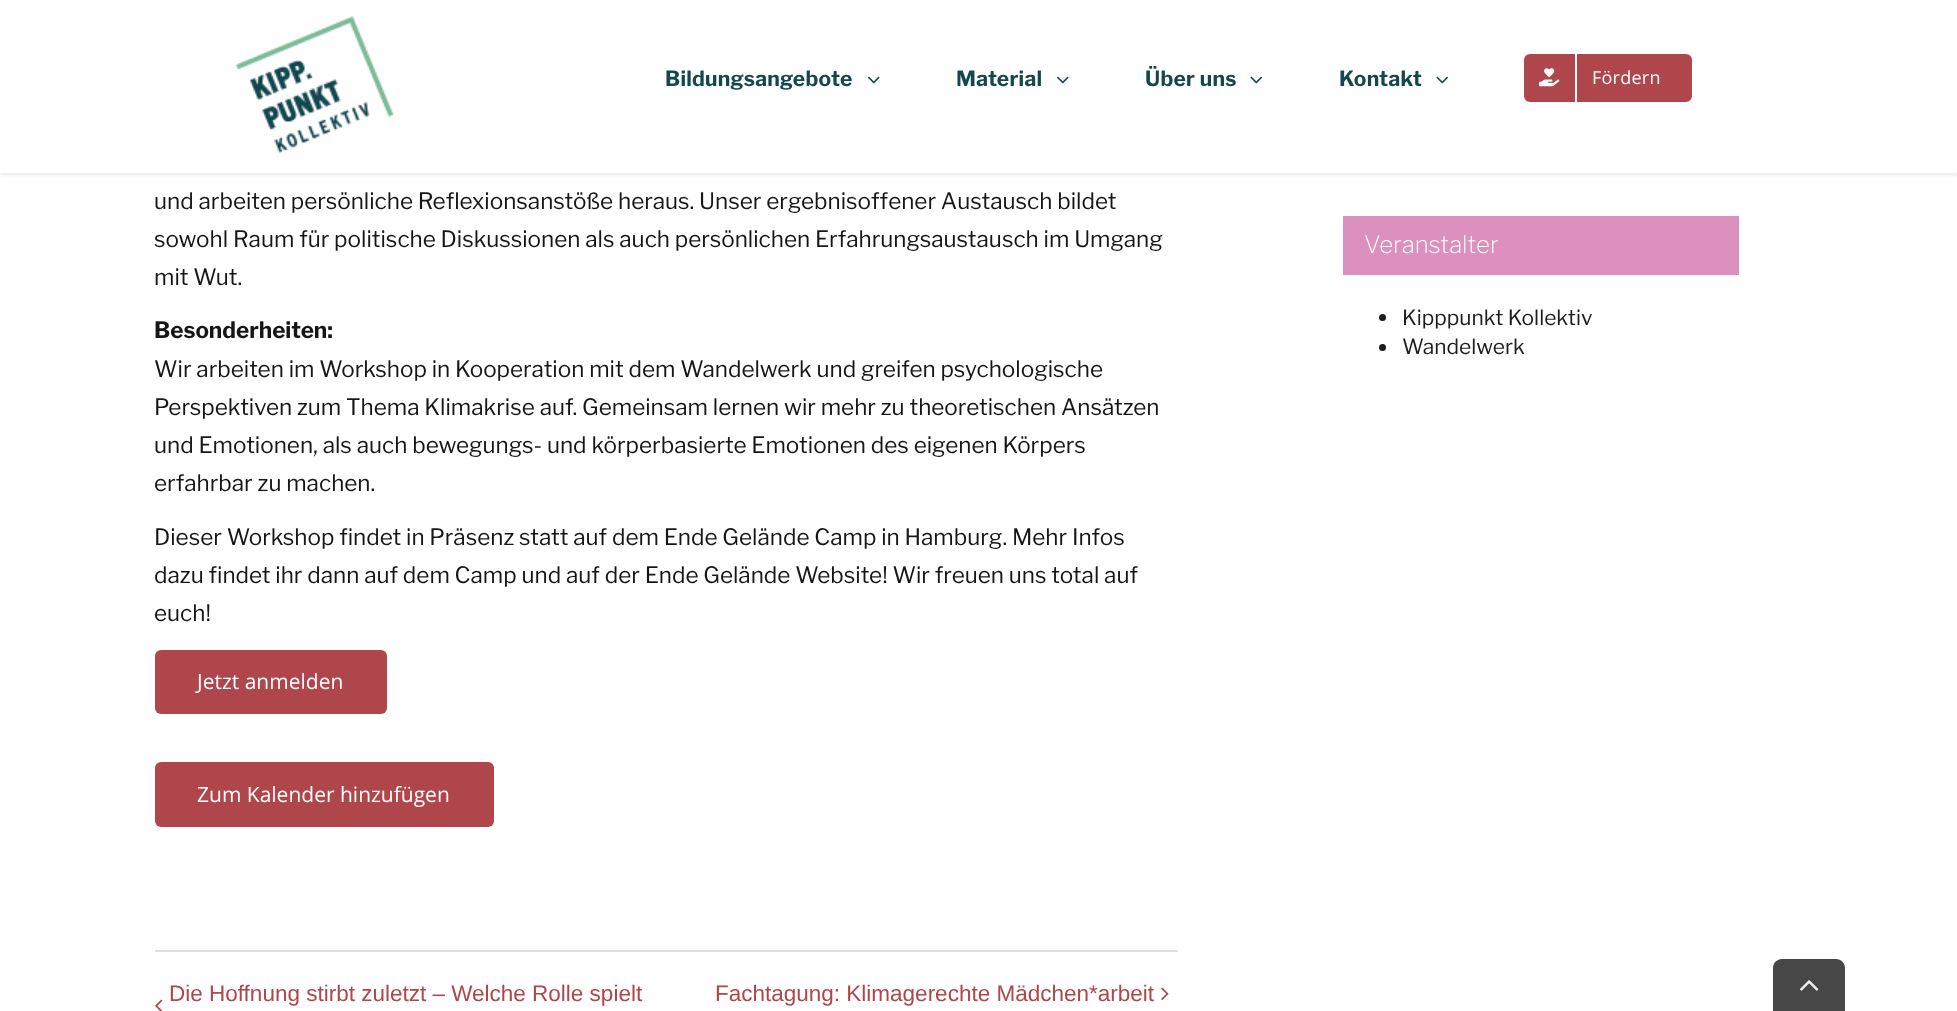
<svg xmlns="http://www.w3.org/2000/svg" width="1957" height="1011" viewBox="0 0 1957 1011">
  <rect width="100%" height="100%" fill="#fff"/>
  <path d="M0 2h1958v172H0z" fill="#0000001f" filter="blur(2px)"/>
  <path d="M0 0h1957v173H0z" fill="#fff"/>
  <image x="235" y="16" width="159" height="138" href="img/1.png"/>
  <image x="868" y="76" width="12" height="8" href="img/2.png"/>
  <image x="1057" y="76" width="12" height="8" href="img/2.png"/>
  <image x="1250" y="76" width="13" height="8" href="img/3.png"/>
  <image x="1436" y="76" width="13" height="8" href="img/3.png"/>
  <rect x="1524" y="54" width="168" height="48" rx="6" fill="#ae464b"/>
  <path d="M1575 54h2v48H1575z" fill="#fff"/>
  <image x="1539" y="68" width="21" height="19" href="img/4.png"/>
  <rect x="155" y="650" width="232" height="64" rx="6" fill="#ae464b"/>
  <rect x="155" y="762" width="339" height="65" rx="6" fill="#ae464b"/>
  <path d="M155 950h1023v2H155z" fill="#e0dede"/>
  <image x="155" y="999" width="8" height="12" href="img/5.png"/>
  <image x="1161" y="987" width="8" height="13" href="img/6.png"/>
  <path d="M1343 216h396v59H1343z" fill="#dc90bd"/>
  <circle cx="1382.5" cy="317.5" r="3.5" fill="#1d1d1b"/>
  <circle cx="1382.5" cy="347.5" r="3.5" fill="#1d1d1b"/>
  <path d="M1782 959H1836C1841 959 1845 963 1845 968V1011H1773V968C1773 963 1777 959 1782 959Z" fill="#474747"/>
  <image x="1800" y="980" width="19" height="11" href="img/7.png"/>
  <g font-family="Libre Franklin" font-size="21" font-weight="bold" letter-spacing="0.25" fill="#15474f">
    <text x="665" y="86">Bildungsangebote</text>
    <text x="956" y="86">Material</text>
    <text x="1145" y="86">Über uns</text>
    <text x="1339" y="86">Kontakt</text>
  </g>
  <text x="1592" y="84" font-family="Open Sans" font-size="18" letter-spacing="0.25" fill="#fff">Fördern</text>
  <g font-family="Libre Franklin" font-size="22.5" fill="#161616">
    <text x="154" y="209">und arbeiten persönliche Reflexionsanstöße heraus. Unser ergebnisoffener Austausch bildet</text>
    <text x="154" y="247">sowohl Raum für politische Diskussionen als auch persönlichen Erfahrungsaustausch im Umgang</text>
    <text x="154" y="285">mit Wut.</text>
  </g>
  <text x="154" y="338" font-family="Libre Franklin" font-size="22.5" font-weight="bold" fill="#161616">Besonderheiten:</text>
  <g font-family="Libre Franklin" font-size="22.5" fill="#161616">
    <text x="154" y="377">Wir arbeiten im Workshop in Kooperation mit dem Wandelwerk und greifen psychologische</text>
    <text x="154" y="415">Perspektiven zum Thema Klimakrise auf. Gemeinsam lernen wir mehr zu theoretischen Ansätzen</text>
    <text x="154" y="453">und Emotionen, als auch bewegungs- und körperbasierte Emotionen des eigenen Körpers</text>
    <text x="154" y="491">erfahrbar zu machen.</text>
    <text x="154" y="545">Dieser Workshop findet in Präsenz statt auf dem Ende Gelände Camp in Hamburg. Mehr Infos</text>
    <text x="154" y="583">dazu findet ihr dann auf dem Camp und auf der Ende Gelände Website! Wir freuen uns total auf</text>
    <text x="154" y="621">euch!</text>
  </g>
  <g font-family="Open Sans" font-size="21" fill="#fff">
    <text x="197" y="689">Jetzt anmelden</text>
    <text x="197" y="802">Zum Kalender hinzufügen</text>
  </g>
  <g font-family="Liberation Sans" font-size="22.5" fill="#ae464b">
    <text x="169" y="1001">Die Hoffnung stirbt zuletzt – Welche Rolle spielt</text>
    <text x="715" y="1001">Fachtagung: Klimagerechte Mädchen*arbeit</text>
  </g>
  <text x="1364" y="253" font-family="Libre Franklin" font-size="24" font-weight="200" fill="#fff">Veranstalter</text>
  <g font-family="Libre Franklin" font-size="21" fill="#1d1d1b">
    <text x="1402" y="325">Kipppunkt Kollektiv</text>
    <text x="1402" y="354">Wandelwerk</text>
  </g>
</svg>
